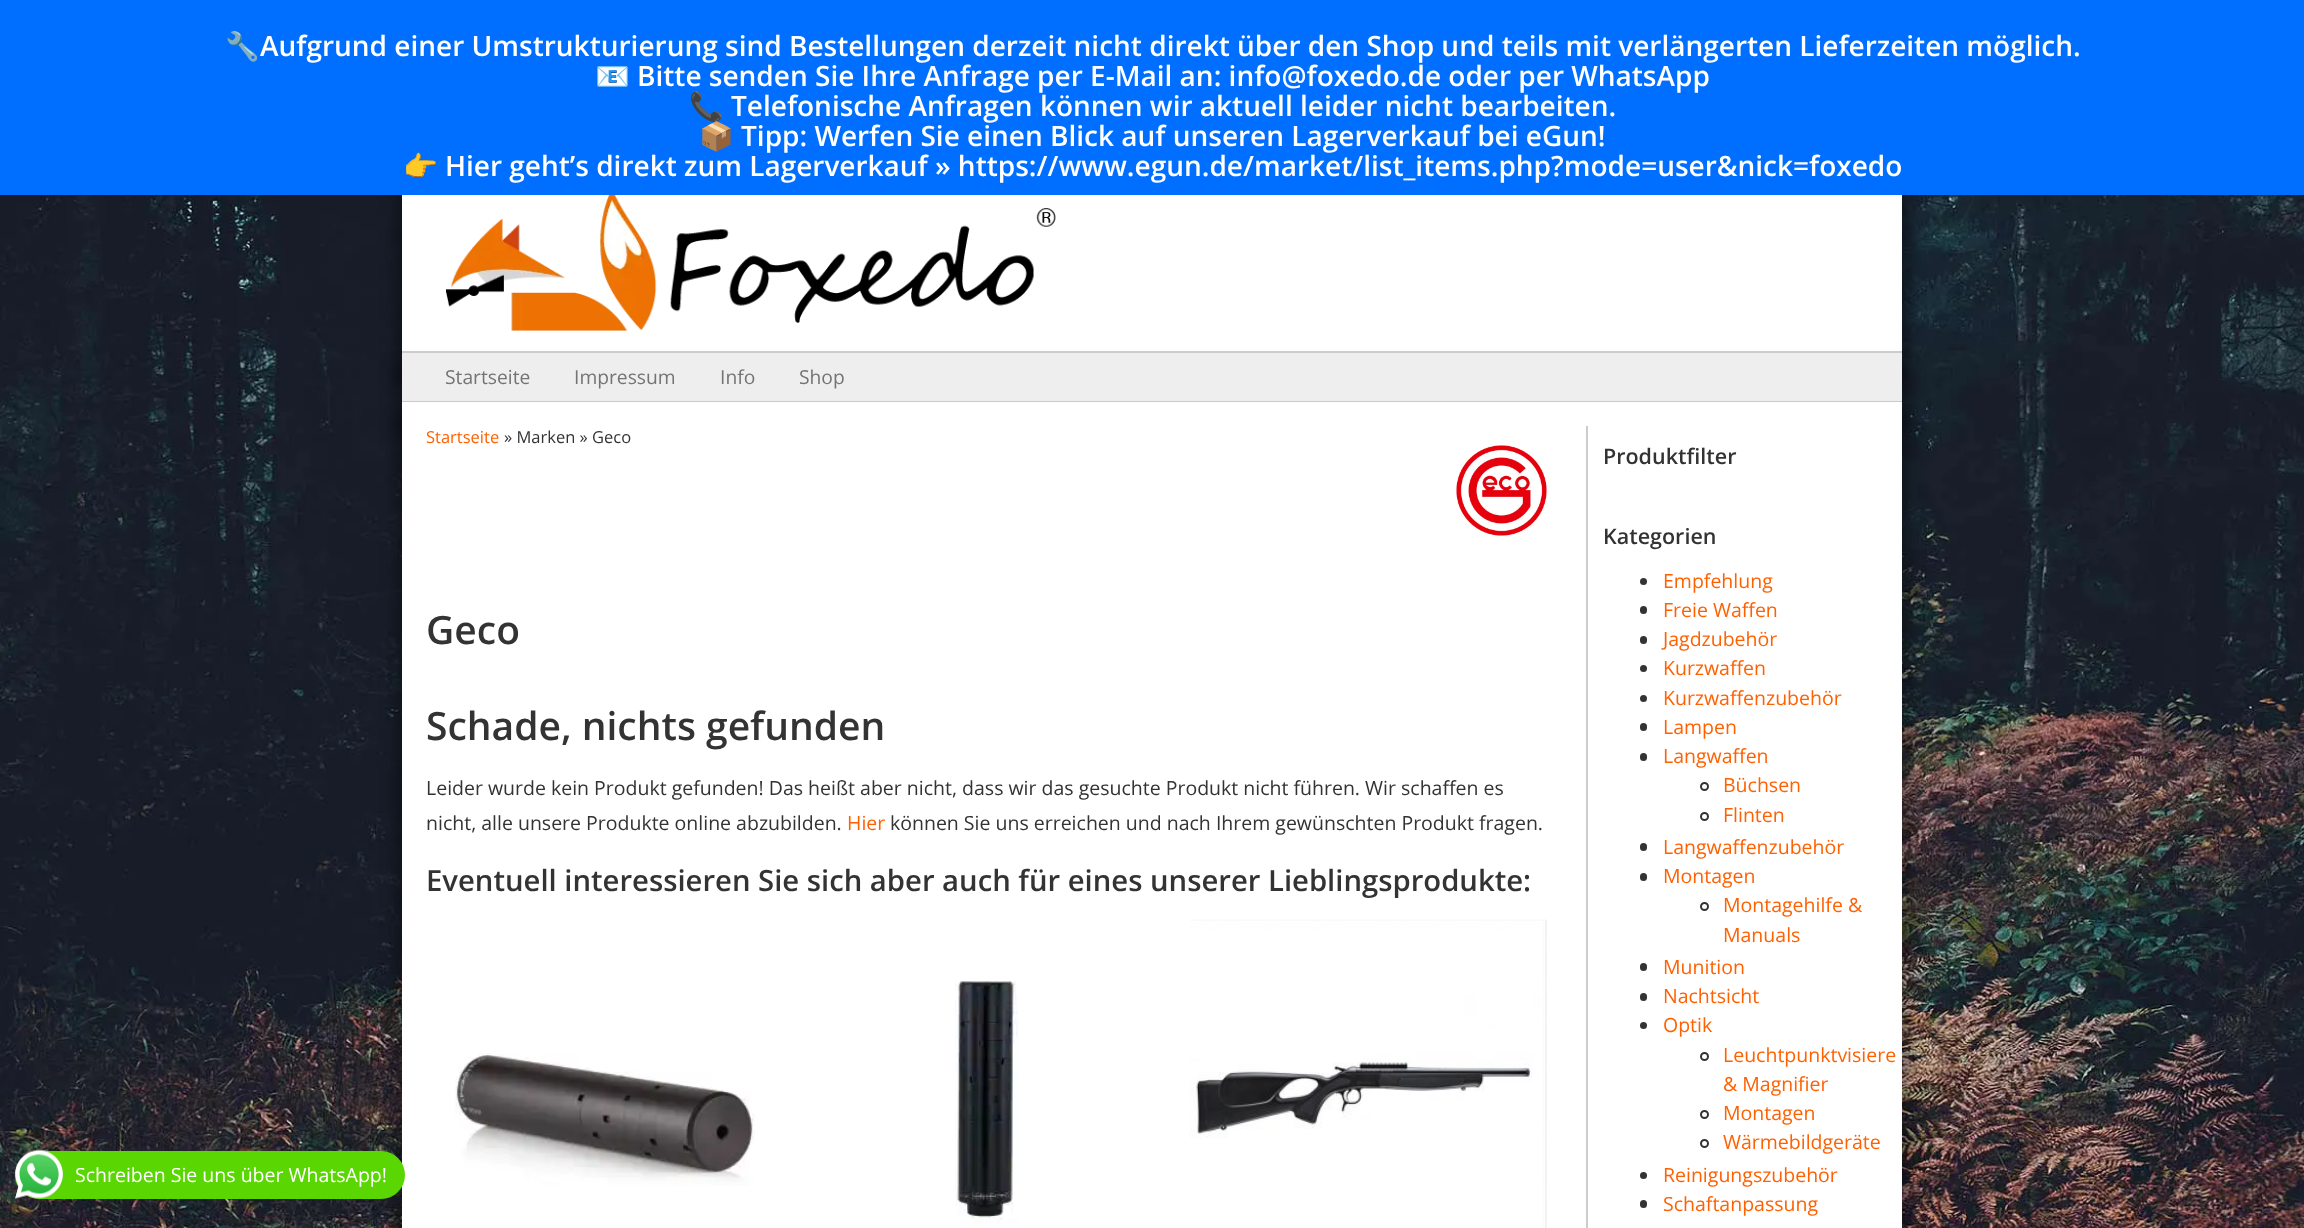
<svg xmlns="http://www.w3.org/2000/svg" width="2304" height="1228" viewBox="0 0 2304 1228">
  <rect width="100%" height="100%" fill="#fff"/>
  <image x="0" y="195" width="2304" height="1033" href="img/1.png"/>
  <path d="M395 180h1515v201H395z" fill="#00000059" filter="blur(7.5px)"/>
  <path d="M0 0h2304v195H0z" fill="#006eff"/>
  <path d="M402 195h1500v156H402z" fill="#fff"/>
  <image x="446" y="195" width="610" height="136" href="img/2.png"/>
  <path d="M395 366h1515v66H395z" fill="#00000059" filter="blur(7.5px)"/>
  <path d="M402 353h1500v48H402z" fill="#eee"/>
  <path d="M402 351h1500v2H402z" fill="#ccc"/>
  <path d="M402 401h1500v1H402z" fill="#ccc"/>
  <path d="M395 417h1515v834H395z" fill="#00000059" filter="blur(7.5px)"/>
  <path d="M402 402h1500v826H402z" fill="#fff"/>
  <rect x="15" y="1151" width="390" height="48" rx="24" fill="#5ad602"/>
  <image x="15" y="1150" width="48" height="49" href="img/3.png"/>
  <path d="M1586 426h2v802H1586z" fill="#ccc"/>
  <image x="1456" y="445" width="91" height="91" href="img/4.png"/>
  <image x="455" y="1053" width="300" height="133" href="img/5.png"/>
  <image x="955" y="981" width="64" height="243" href="img/6.png"/>
  <image x="1189" y="919" width="358" height="309" href="img/7.png"/>
  <circle cx="1643.5" cy="581.5" r="3.5" fill="#333"/>
  <rect x="1640" y="606" width="7" height="8" rx="3.5" fill="#333"/>
  <rect x="1640" y="636" width="7" height="8" rx="3.5" fill="#333"/>
  <circle cx="1643.5" cy="668.5" r="3.5" fill="#333"/>
  <circle cx="1643.5" cy="698.5" r="3.5" fill="#333"/>
  <rect x="1640" y="723" width="7" height="8" rx="3.5" fill="#333"/>
  <rect x="1640" y="753" width="7" height="8" rx="3.5" fill="#333"/>
  <circle cx="1704.5" cy="786.5" r="3.5" fill="none" stroke="#333" stroke-width="2"/>
  <circle cx="1704.5" cy="816.5" r="3.5" fill="none" stroke="#333" stroke-width="2"/>
  <rect x="1640" y="843" width="7" height="8" rx="3.5" fill="#333"/>
  <rect x="1640" y="873" width="7" height="8" rx="3.5" fill="#333"/>
  <circle cx="1704.5" cy="906.5" r="3.5" fill="none" stroke="#333" stroke-width="2"/>
  <rect x="1640" y="963" width="7" height="8" rx="3.5" fill="#333"/>
  <rect x="1640" y="993" width="7" height="8" rx="3.5" fill="#333"/>
  <circle cx="1643.5" cy="1025.5" r="3.5" fill="#333"/>
  <circle cx="1704.5" cy="1056.5" r="3.5" fill="none" stroke="#333" stroke-width="2"/>
  <circle cx="1704.5" cy="1114.5" r="3.5" fill="none" stroke="#333" stroke-width="2"/>
  <circle cx="1704.5" cy="1143.5" r="3.5" fill="none" stroke="#333" stroke-width="2"/>
  <circle cx="1643.5" cy="1175.5" r="3.5" fill="#333"/>
  <rect x="1640" y="1200" width="7" height="8" rx="3.5" fill="#333"/>
  <text x="225" y="56" font-family="Noto Color Emoji" font-size="28" font-weight="bold" fill="#fff">🔧</text>
  <text x="260" y="56" font-family="Open Sans" font-size="28" font-weight="600" fill="#fff">Aufgrund einer Umstrukturierung sind Bestellungen derzeit nicht direkt über den Shop und teils mit verlängerten Lieferzeiten möglich.</text>
  <text x="595" y="86" font-family="Noto Color Emoji" font-size="28" font-weight="bold" fill="#fff">📧</text>
  <text x="637" y="86" font-family="Open Sans" font-size="28" font-weight="600" fill="#fff">Bitte senden Sie Ihre Anfrage per E-Mail an: info@foxedo.de oder per WhatsApp</text>
  <text x="689" y="116" font-family="Noto Color Emoji" font-size="28" font-weight="bold" fill="#fff">📞</text>
  <text x="731" y="116" font-family="Open Sans" font-size="28" font-weight="600" fill="#fff">Telefonische Anfragen können wir aktuell leider nicht bearbeiten.</text>
  <text x="699" y="146" font-family="Noto Color Emoji" font-size="28" font-weight="bold" fill="#fff">📦</text>
  <text x="741" y="146" font-family="Open Sans" font-size="28" font-weight="600" fill="#fff">Tipp: Werfen Sie einen Blick auf unseren Lagerverkauf bei eGun!</text>
  <text x="403" y="176" font-family="Noto Color Emoji" font-size="28" font-weight="bold" fill="#fff">👉</text>
  <text x="445" y="176" font-family="Open Sans" font-size="28" font-weight="600" fill="#fff">Hier geht’s direkt zum Lagerverkauf » https://www.egun.de/market/list_items.php?mode=user&amp;nick=foxedo</text>
  <g font-family="Open Sans" font-size="19.25" fill="#747474">
    <text x="445" y="384">Startseite</text>
    <text x="574" y="384">Impressum</text>
    <text x="720" y="384">Info</text>
    <text x="799" y="384">Shop</text>
  </g>
  <text x="75" y="1182" font-family="Open Sans" font-size="19.5" fill="#fff">Schreiben Sie uns über WhatsApp!</text>
  <text x="426" y="443" font-family="Open Sans" font-size="16.5" fill="#ff6100">Startseite</text>
  <text x="504" y="443" font-family="Open Sans" font-size="16.5" fill="#333">» Marken » Geco</text>
  <g font-family="Open Sans" font-size="39" font-weight="600" fill="#333">
    <text x="426" y="644">Geco</text>
    <text x="426" y="740">Schade, nichts gefunden</text>
  </g>
  <g font-family="Open Sans" font-size="19.5" fill="#333">
    <text x="426" y="795">Leider wurde kein Produkt gefunden! Das heißt aber nicht, dass wir das gesuchte Produkt nicht führen. Wir schaffen es</text>
    <text x="426" y="830">nicht, alle unsere Produkte online abzubilden.</text>
  </g>
  <text x="847" y="830" font-family="Open Sans" font-size="19.5" fill="#ff6100">Hier</text>
  <text x="890" y="830" font-family="Open Sans" font-size="19.5" fill="#333">können Sie uns erreichen und nach Ihrem gewünschten Produkt fragen.</text>
  <text x="426" y="891" font-family="Open Sans" font-size="29.25" font-weight="600" fill="#333">Eventuell interessieren Sie sich aber auch für eines unserer Lieblingsprodukte:</text>
  <g font-family="Open Sans" font-size="21.5" font-weight="600" fill="#333">
    <text x="1603" y="464">Produktfilter</text>
    <text x="1603" y="544">Kategorien</text>
  </g>
  <g font-family="Open Sans" font-size="19.5" fill="#ff6100">
    <text x="1663" y="588">Empfehlung</text>
    <text x="1663" y="617">Freie Waffen</text>
    <text x="1663" y="646">Jagdzubehör</text>
    <text x="1663" y="675">Kurzwaffen</text>
    <text x="1663" y="705">Kurzwaffenzubehör</text>
    <text x="1663" y="734">Lampen</text>
    <text x="1663" y="763">Langwaffen</text>
    <text x="1723" y="792">Büchsen</text>
    <text x="1723" y="822">Flinten</text>
    <text x="1663" y="854">Langwaffenzubehör</text>
    <text x="1663" y="883">Montagen</text>
    <text x="1723" y="912">Montagehilfe &amp;</text>
    <text x="1723" y="942">Manuals</text>
    <text x="1663" y="974">Munition</text>
    <text x="1663" y="1003">Nachtsicht</text>
    <text x="1663" y="1032">Optik</text>
    <text x="1723" y="1062">Leuchtpunktvisiere</text>
    <text x="1723" y="1091">&amp; Magnifier</text>
    <text x="1723" y="1120">Montagen</text>
    <text x="1723" y="1149">Wärmebildgeräte</text>
    <text x="1663" y="1182">Reinigungszubehör</text>
    <text x="1663" y="1211">Schaftanpassung</text>
  </g>
</svg>
